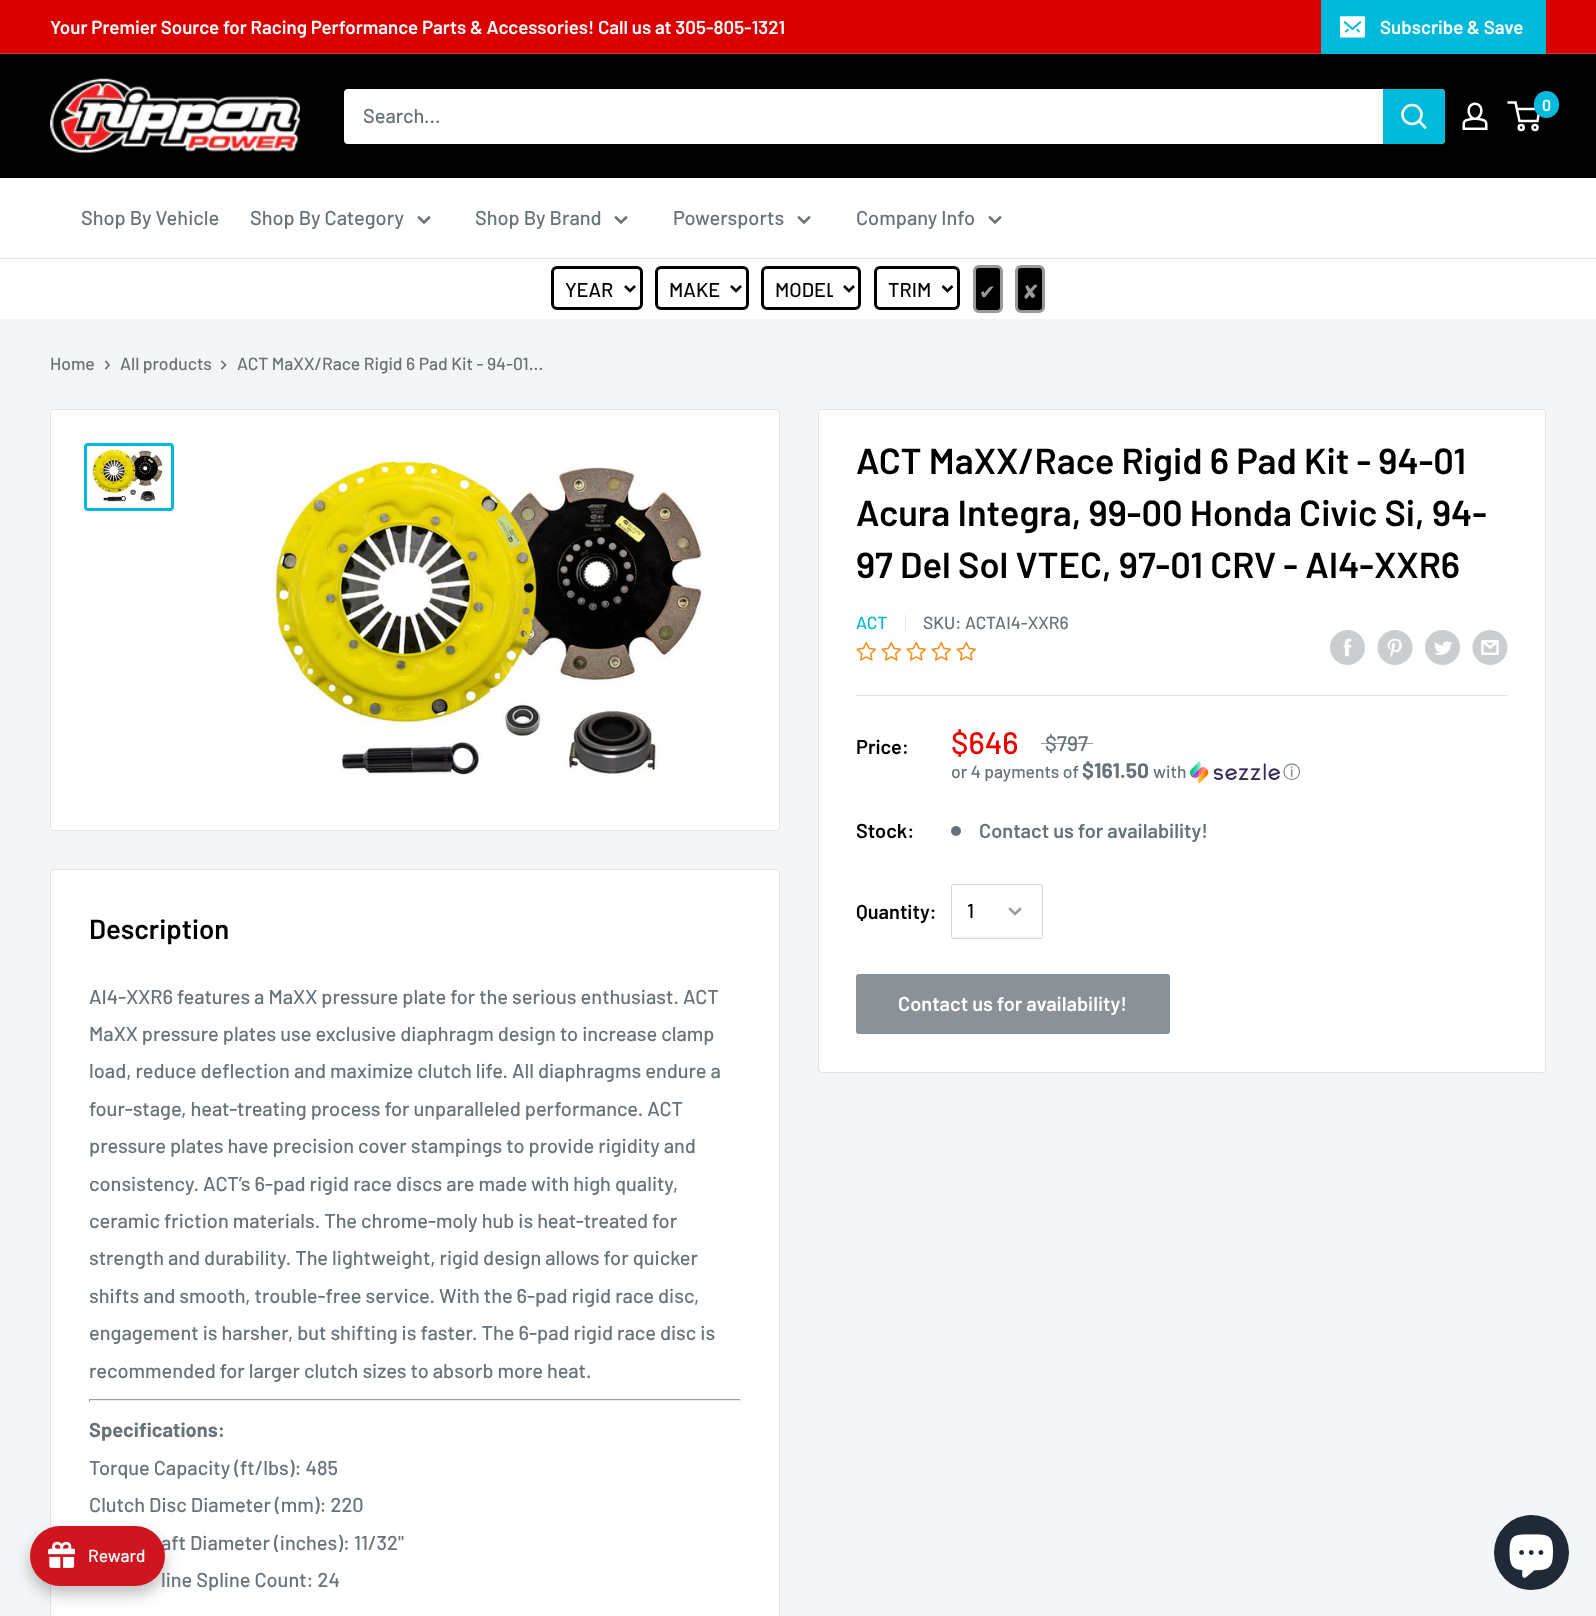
<svg xmlns="http://www.w3.org/2000/svg" width="1596" height="1616" viewBox="0 0 1596 1616">
  <defs>
    <clipPath id="clip1"><path d="M775 275h58v26H775z"/></clipPath>
  </defs>
  <rect width="100%" height="100%" fill="#f3f5f6"/>
  <path d="M0 0h1596v53H0z" fill="#db0000"/>
  <path d="M0 53h1596v1H0z" fill="#ca3548"/>
  <path d="M1321 1V54H1546V52H1321Z" fill="#00badb"/>
  <path d="M1321 0h225v52H1321z" fill="#00badb"/>
  <image x="1340" y="16" width="25" height="22" href="img/1.png"/>
  <path d="M0 54h1596v124H0z" fill="#000"/>
  <image x="50" y="78" width="250" height="75" href="img/2.png"/>
  <image x="1462" y="102" width="26" height="28" href="img/3.png"/>
  <circle cx="1521.2" cy="127.5" r="2.5" fill="none" stroke="#fff" stroke-width="2.5"/>
  <circle cx="1535" cy="127.5" r="2.5" fill="none" stroke="#fff" stroke-width="2.5"/>
  <path d="M1516.5 109H1539.5L1537.5 121H1519.5L1515.5 102.5H1507.5" fill="none" stroke="#fff" stroke-width="2.5"/>
  <rect x="1534" y="91" width="25" height="27" rx="12.5" fill="#00badb"/>
  <rect x="344" y="89" width="1101" height="55" rx="4" fill="#fff"/>
  <path d="M1383 89H1441C1443 89 1445 91 1445 93V140C1445 142 1443 144 1441 144H1383Z" fill="#00badb"/>
  <path d="M1425 127.5L1419 121" fill="none" stroke="#fff" stroke-width="2.5" stroke-linecap="square"/>
  <circle cx="1412" cy="114.5" r="9.5" fill="none" stroke="#fff" stroke-width="2.5"/>
  <path d="M0 178h1596v80H0z" fill="#fff"/>
  <path d="M0 258h1596v1H0z" fill="#e1e3e4"/>
  <path d="M429 217.5L424 222.5L419 217.5" fill="none" stroke="#677279" stroke-width="2.5" stroke-linecap="square"/>
  <path d="M626 217.5L621 222.5L616 217.5" fill="none" stroke="#677279" stroke-width="2.5" stroke-linecap="square"/>
  <path d="M809 217.5L804 222.5L799 217.5" fill="none" stroke="#677279" stroke-width="2.5" stroke-linecap="square"/>
  <path d="M1000 217.5L995 222.5L990 217.5" fill="none" stroke="#677279" stroke-width="2.5" stroke-linecap="square"/>
  <path d="M0 259h1596v60H0z" fill="#fff"/>
  <rect x="552.5" y="267.5" width="89" height="41" rx="4.5" fill="none" stroke="#000" stroke-width="3"/>
  <path d="M625 286L630 291L635 286" fill="none" stroke="#000" stroke-width="2.5"/>
  <rect x="656.5" y="267.5" width="91" height="41" rx="4.5" fill="none" stroke="#000" stroke-width="3"/>
  <path d="M731 286L736 291L741 286" fill="none" stroke="#000" stroke-width="2.5"/>
  <rect x="762.5" y="267.5" width="97" height="41" rx="4.5" fill="none" stroke="#000" stroke-width="3"/>
  <path d="M844 286L849 291L854 286" fill="none" stroke="#000" stroke-width="2.5"/>
  <rect x="875.5" y="267.5" width="83" height="41" rx="4.5" fill="none" stroke="#000" stroke-width="3"/>
  <path d="M942.5 286L947.5 291L952.5 286" fill="none" stroke="#000" stroke-width="2.5"/>
  <rect x="974.5" y="266.5" width="27" height="45" rx="4.5" fill="#000" stroke="#999" stroke-width="3"/>
  <rect x="1016.5" y="266.5" width="27" height="45" rx="4.5" fill="#000" stroke="#999" stroke-width="3"/>
  <path d="M106 361.5L109 365L106 368.5" fill="none" stroke="#677279" stroke-width="1.7" stroke-linecap="square"/>
  <path d="M222 361.5L225.5 365L222 368.5" fill="none" stroke="#677279" stroke-width="1.7" stroke-linecap="square"/>
  <rect x="50.5" y="409.5" width="729" height="421" rx="3.5" fill="#fff" stroke="#e1e3e4"/>
  <rect x="85.5" y="444.5" width="87" height="65" rx="2.5" fill="none" stroke="#00badb" stroke-width="3"/>
  <image x="90" y="447" width="73" height="55" href="img/4.png"/>
  <image x="270" y="457" width="432" height="323" href="img/5.png"/>
  <rect x="818.5" y="409.5" width="727" height="663" rx="3.5" fill="#fff" stroke="#e1e3e4"/>
  <path d="M905 615h1v16H905z" fill="#e1e3e4"/>
  <image x="856" y="641" width="21" height="20" href="img/6.png"/>
  <image x="881" y="641" width="21" height="20" href="img/6.png"/>
  <image x="906" y="641" width="21" height="20" href="img/6.png"/>
  <image x="931" y="641" width="21" height="20" href="img/6.png"/>
  <image x="956" y="641" width="21" height="20" href="img/6.png"/>
  <image x="1330" y="630" width="35" height="35" href="img/7.png"/>
  <image x="1377" y="630" width="36" height="35" href="img/8.png"/>
  <image x="1425" y="630" width="35" height="35" href="img/9.png"/>
  <image x="1472" y="630" width="36" height="35" href="img/10.png"/>
  <path d="M856 695h652v1H856z" fill="#e1e3e4"/>
  <image x="1190" y="761" width="90" height="23" href="img/11.png"/>
  <circle cx="956" cy="831" r="5" fill="#677279"/>
  <path d="M953 936C953 937 953 938 954 938H1026C1035 938 1041 942 1041 935L1040 936H968C959 936 955 937 953 936Z" fill="#f6f7f7"/>
  <rect x="951.5" y="884.5" width="91" height="54" rx="2" fill="none" stroke="#d4d6d8"/>
  <path d="M1020 909L1015 914L1010 909" fill="none" stroke="#959ca1" stroke-width="2.5" stroke-linecap="square"/>
  <rect x="856.5" y="974.5" width="313" height="59" rx="2" fill="#8a9297" stroke="#8a9297"/>
  <rect x="50.5" y="869.5" width="729" height="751" rx="3.5" fill="#fff" stroke="#e1e3e4"/>
  <path d="M89 1399h652v1H89z" fill="#9f9f9f"/>
  <path d="M740 1399h1v3H740z" fill="#eee"/>
  <path d="M89 1400h652v1H89z" fill="#eee"/>
  <path d="M89 1399h1v3H89z" fill="#9f9f9f"/>
  <circle cx="1531.5" cy="1552.5" r="37.5" fill="#202a36"/>
  <image x="1509" y="1534" width="44" height="44" href="img/12.png"/>
  <rect x="30" y="1534" width="135" height="60" rx="30" fill="#00000040" filter="blur(7.5px)"/>
  <g font-family="Barlow" font-size="18.75" font-weight="600" fill="#fff">
    <text x="50" y="34">Your Premier Source for Racing Performance Parts &amp; Accessories! Call us at 305-805-1321</text>
    <text x="1380" y="34">Subscribe &amp; Save</text>
  </g>
  <text x="1542" y="111" font-family="Barlow" font-size="16" font-weight="600" fill="#fff">0</text>
  <g font-family="Barlow" font-size="20" font-weight="500" fill="#677279">
    <text x="363" y="123">Search...</text>
    <text x="81" y="225">Shop By Vehicle</text>
    <text x="250" y="225">Shop By Category</text>
    <text x="475" y="225">Shop By Brand</text>
    <text x="673" y="225">Powersports</text>
    <text x="856" y="225">Company Info</text>
  </g>
  <g font-family="Barlow" font-size="20" font-weight="500" fill="#000">
    <text x="565" y="297">YEAR</text>
    <text x="669" y="297">MAKE</text>
  </g>
  <g clip-path="url(#clip1)">
    <text x="775" y="297" font-family="Barlow" font-size="20" font-weight="500" fill="#000">MODEL</text>
  </g>
  <text x="888" y="297" font-family="Barlow" font-size="20" font-weight="500" fill="#000">TRIM</text>
  <g font-family="DejaVu Sans" font-size="20" fill="#999">
    <text x="979" y="299">✔</text>
    <text x="1022" y="299">✘</text>
  </g>
  <g font-family="Barlow" font-size="17.5" font-weight="500" fill="#677279">
    <text x="50" y="370">Home</text>
    <text x="120" y="370">All products</text>
    <text x="237" y="370">ACT MaXX/Race Rigid 6 Pad Kit - 94-01...</text>
  </g>
  <g font-family="Barlow" font-size="36.25" font-weight="600" fill="#000">
    <text x="856" y="474">ACT MaXX/Race Rigid 6 Pad Kit - 94-01</text>
    <text x="856" y="526">Acura Integra, 99-00 Honda Civic Si, 94-</text>
    <text x="856" y="578">97 Del Sol VTEC, 97-01 CRV - AI4-XXR6</text>
  </g>
  <text x="856" y="629" font-family="Barlow" font-size="17.5" font-weight="500" fill="#00badb">ACT</text>
  <text x="923" y="629" font-family="Barlow" font-size="17.5" font-weight="500" fill="#677279">SKU: ACTAI4-XXR6</text>
  <text x="856" y="754" font-family="Barlow" font-size="20" font-weight="600" fill="#000">Price:</text>
  <text x="951" y="754" font-family="Barlow" font-size="31" font-weight="500" fill="#e00">$646</text>
  <text x="1045" y="751" font-family="Barlow" font-size="21" font-weight="500" fill="#677279">$797</text>
  <path d="M1041 743h52v1H1041z" fill="#677279b3"/>
  <text x="951" y="778" font-family="Barlow" font-size="17.5" font-weight="500" fill="#677279">or 4 payments of</text>
  <text x="1082" y="778" font-family="Barlow" font-size="21" font-weight="bold" fill="#677279">$161.50</text>
  <text x="1153" y="778" font-family="Barlow" font-size="17.5" font-weight="500" fill="#677279">with</text>
  <text x="1283" y="778" font-family="WenQuanYi Zen Hei" font-size="17.5" font-weight="500" fill="#677279">ⓘ</text>
  <text x="856" y="838" font-family="Barlow" font-size="20" font-weight="600" fill="#000">Stock:</text>
  <text x="979" y="838" font-family="Barlow" font-size="20" font-weight="600" fill="#677279">Contact us for availability!</text>
  <text x="856" y="919" font-family="Barlow" font-size="20" font-weight="600" fill="#000">Quantity:</text>
  <text x="967" y="918" font-family="Barlow" font-size="20" font-weight="500" fill="#000">1</text>
  <text x="898" y="1011" font-family="Barlow" font-size="20" font-weight="600" fill="#fff">Contact us for availability!</text>
  <text x="89" y="939" font-family="Barlow" font-size="27.5" font-weight="600" fill="#000">Description</text>
  <g font-family="Barlow" font-size="20" font-weight="500" fill="#677279">
    <text x="89" y="1004">AI4-XXR6 features a MaXX pressure plate for the serious enthusiast. ACT</text>
    <text x="89" y="1041">MaXX pressure plates use exclusive diaphragm design to increase clamp</text>
    <text x="89" y="1078">load, reduce deflection and maximize clutch life. All diaphragms endure a</text>
    <text x="89" y="1116">four-stage, heat-treating process for unparalleled performance. ACT</text>
    <text x="89" y="1153">pressure plates have precision cover stampings to provide rigidity and</text>
    <text x="89" y="1191">consistency. ACT’s 6-pad rigid race discs are made with high quality,</text>
    <text x="89" y="1228">ceramic friction materials. The chrome-moly hub is heat-treated for</text>
    <text x="89" y="1265">strength and durability. The lightweight, rigid design allows for quicker</text>
    <text x="89" y="1303">shifts and smooth, trouble-free service. With the 6-pad rigid race disc,</text>
    <text x="89" y="1340">engagement is harsher, but shifting is faster. The 6-pad rigid race disc is</text>
    <text x="89" y="1378">recommended for larger clutch sizes to absorb more heat.</text>
  </g>
  <text x="89" y="1437" font-family="Barlow" font-size="20" font-weight="bold" fill="#677279">Specifications:</text>
  <g font-family="Barlow" font-size="20" font-weight="500" fill="#677279">
    <text x="89" y="1475">Torque Capacity (ft/lbs): 485</text>
    <text x="89" y="1512">Clutch Disc Diameter (mm): 220</text>
    <text x="161" y="1550">aft Diameter (inches): 11/32"</text>
    <text x="161" y="1587">line Spline Count: 24</text>
  </g>
  <rect x="30" y="1526" width="135" height="60" rx="30" fill="#cf1620"/>
  <image x="48" y="1541" width="27" height="27" href="img/13.png"/>
  <text x="88" y="1562" font-family="Barlow" font-size="17.5" font-weight="500" fill="#fff">Reward</text>
</svg>
